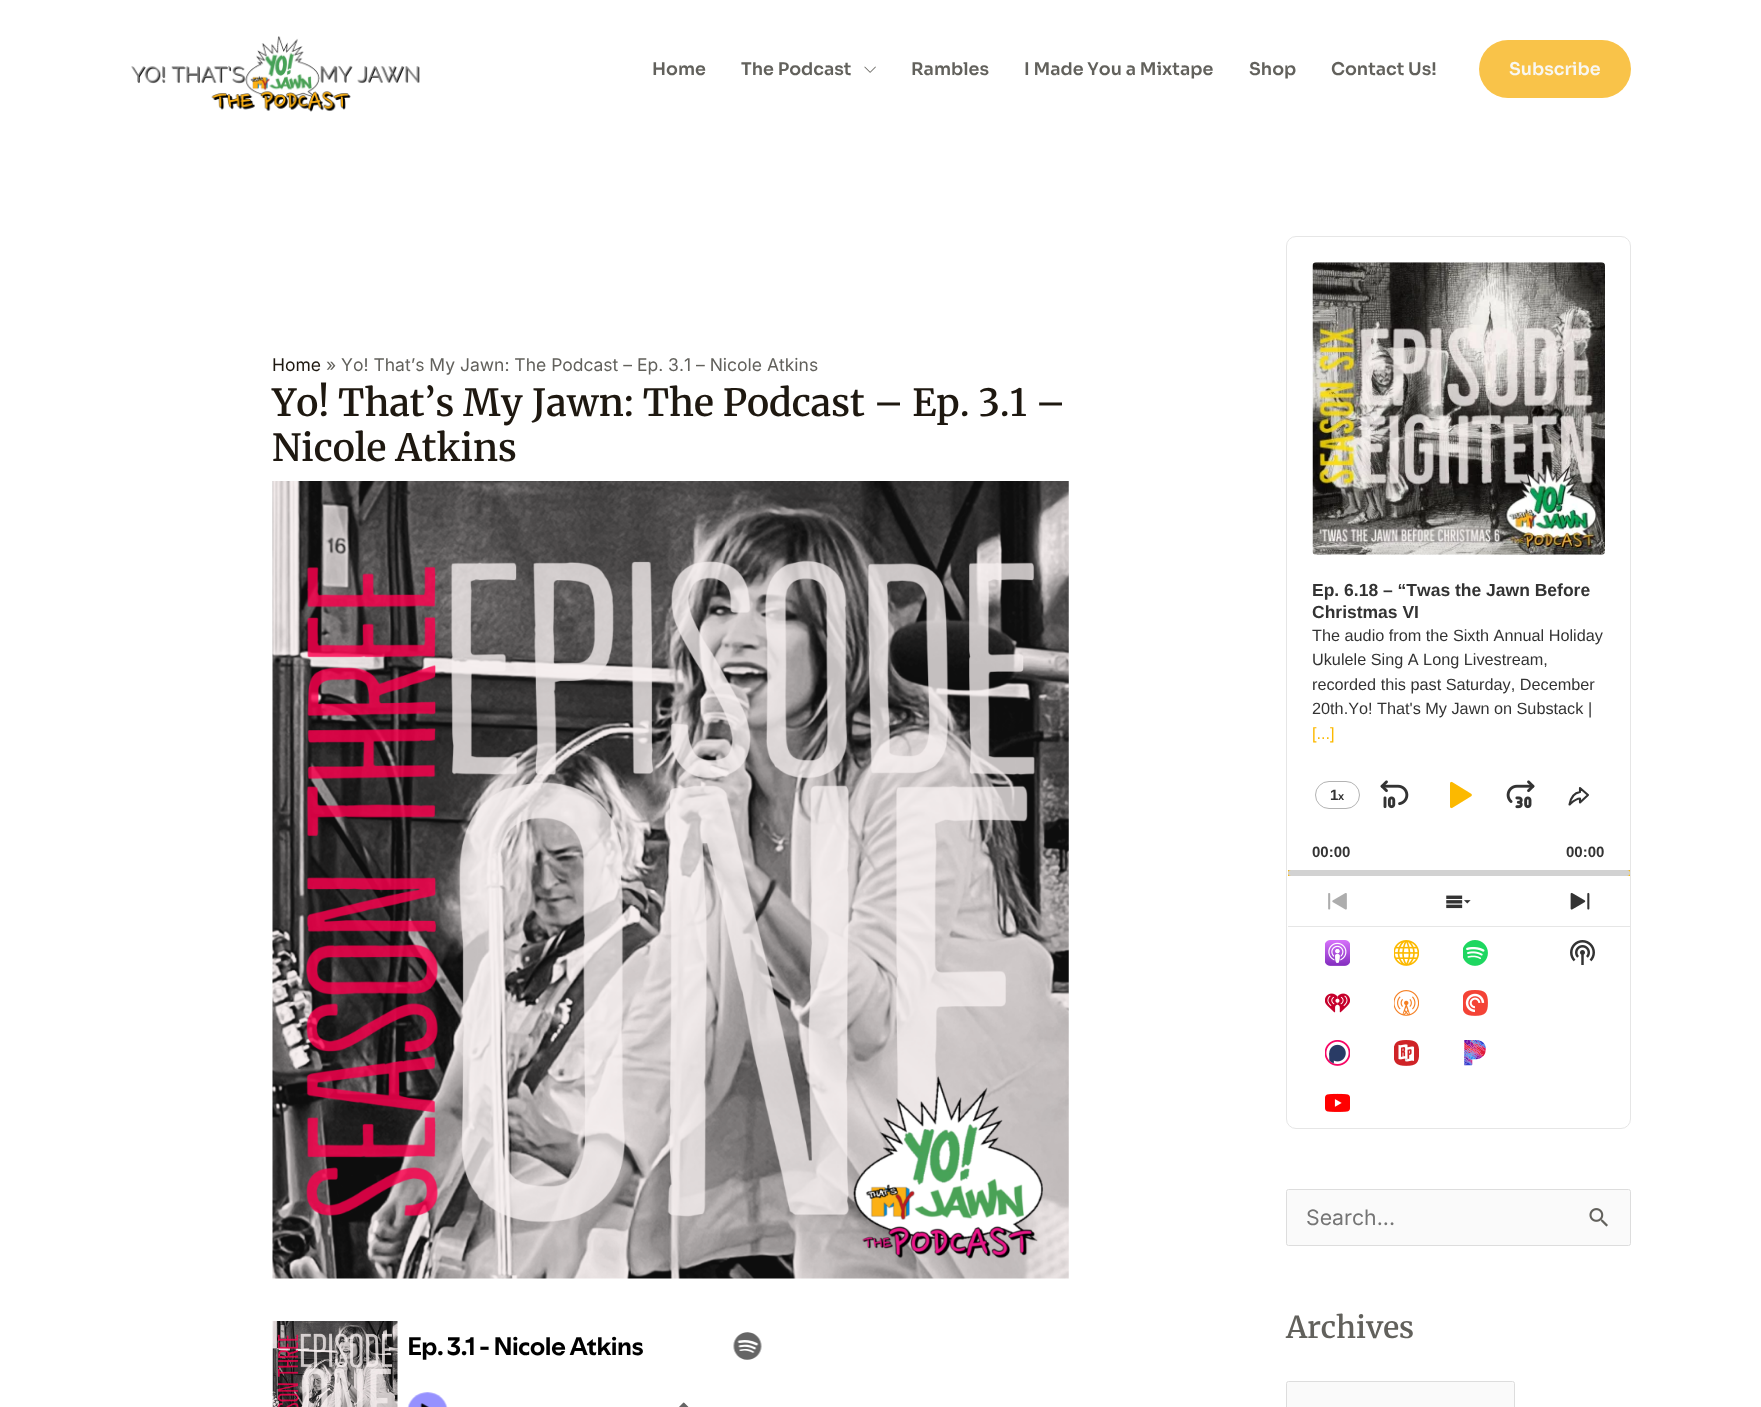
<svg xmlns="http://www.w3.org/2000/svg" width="1761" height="1407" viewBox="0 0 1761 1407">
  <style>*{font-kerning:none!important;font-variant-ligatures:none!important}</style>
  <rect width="100%" height="100%" fill="#fff"/>
  <image x="131" y="36" width="289" height="76" href="img/1.png"/>
  <image x="864" y="66" width="12" height="7" href="img/2.png"/>
  <rect x="1479" y="40" width="152" height="58" rx="29" fill="#f9c349"/>
  <image x="272" y="481" width="797" height="798" href="img/3.png"/>
  <image x="272" y="1321" width="490" height="86" href="img/4.png"/>
  <rect x="1286.5" y="236.5" width="344" height="892" rx="9.5" fill="none" stroke="#e6e6e6"/>
  <image x="1312" y="262" width="293" height="293" href="img/5.png"/>
  <rect x="1315.5" y="781.5" width="44" height="27" rx="13.5" fill="none" stroke="#b3b3b3"/>
  <image x="1380" y="780" width="29" height="29" href="img/6.png"/>
  <image x="1450" y="781" width="22" height="28" href="img/7.png"/>
  <image x="1506" y="780" width="29" height="29" href="img/8.png"/>
  <path d="M1580 788V792C1573 793 1570.5 799 1569.5 804.5C1569.5 805 1575 798.5 1580 798.5V802.5L1588 795Z" fill="none" stroke="#333" stroke-width="2.1" stroke-linecap="round" stroke-linejoin="round"/>
  <path d="M1288 870h342v6H1288z" fill="#fcb900"/>
  <rect x="1288" y="870" width="342" height="6" rx="3" fill="#d2d2d2"/>
  <image x="1328" y="893" width="19" height="17" href="img/9.png"/>
  <image x="1446" y="895" width="25" height="14" href="img/10.png"/>
  <image x="1570" y="892" width="20" height="18" href="img/11.png"/>
  <path d="M1288 926h342v1H1288z" fill="#e6e6e6"/>
  <image x="1325" y="940" width="25" height="26" href="img/12.png"/>
  <image x="1394" y="940" width="25" height="26" href="img/13.png"/>
  <image x="1463" y="940" width="25" height="26" href="img/14.png"/>
  <image x="1325" y="993" width="25" height="20" href="img/15.png"/>
  <image x="1394" y="990" width="25" height="26" href="img/16.png"/>
  <image x="1463" y="990" width="25" height="26" href="img/17.png"/>
  <image x="1325" y="1040" width="25" height="26" href="img/18.png"/>
  <image x="1394" y="1040" width="25" height="26" href="img/19.png"/>
  <image x="1464" y="1040" width="22" height="26" href="img/20.png"/>
  <image x="1325" y="1093" width="25" height="19" href="img/21.png"/>
  <image x="1570" y="940" width="25" height="25" href="img/22.png"/>
  <rect x="1286.5" y="1189.5" width="344" height="56" rx="2" fill="#fafafa" stroke="#ddd"/>
  <image x="1589" y="1208" width="19" height="19" href="img/23.png"/>
  <rect x="1286.5" y="1381.5" width="228" height="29" rx="2" fill="#fafafa" stroke="#ddd"/>
  <g font-family="Sora" font-size="17.5" font-weight="600" fill="#62615c">
    <text x="652" y="75">Home</text>
    <text x="741" y="75">The Podcast</text>
    <text x="911" y="75">Rambles</text>
    <text x="1024" y="75">I Made You a Mixtape</text>
    <text x="1249" y="75">Shop</text>
    <text x="1331" y="75">Contact Us!</text>
  </g>
  <text x="1509" y="75" font-family="Sora" font-size="17.5" font-weight="600" fill="#f8f7f3">Subscribe</text>
  <text x="272" y="371" font-family="Inter" font-size="17.5" fill="#1e1810">Home</text>
  <text x="326" y="371" font-family="Inter" font-size="17.5" fill="#62615c">» Yo! That’s My Jawn: The Podcast – Ep. 3.1</text>
  <text x="696" y="371" font-family="Inter" font-size="17.5" fill="#62615c">– Nicole Atkins</text>
  <g font-family="Merriweather" font-size="37.5" font-weight="600" fill="#1e1810">
    <text x="272" y="416">Yo! That’s My</text>
    <text x="532" y="416">Jawn: The Podcast – Ep. 3.1 –</text>
    <text x="272" y="461">Nicole Atkins</text>
  </g>
  <g font-family="Liberation Sans" font-size="17.5" font-weight="bold" fill="#333">
    <text x="1312" y="596">Ep. 6.18 – “Twas the Jawn Before</text>
    <text x="1312" y="618">Christmas VI</text>
  </g>
  <g font-family="Liberation Sans" font-size="16.25" fill="#333">
    <text x="1312" y="641">The audio from the Sixth Annual Holiday</text>
    <text x="1312" y="665">Ukulele Sing A Long Livestream,</text>
    <text x="1312" y="690">recorded this past Saturday, December</text>
    <text x="1312" y="714">20th.Yo! That's My Jawn on Substack |</text>
  </g>
  <text x="1312" y="739" font-family="Liberation Sans" font-size="16.25" fill="#fcb900">[...]</text>
  <text x="1330" y="800" font-family="Liberation Sans" font-size="15" font-weight="bold" fill="#333">1</text>
  <text x="1338" y="800" font-family="Liberation Sans" font-size="11" font-weight="bold" fill="#333">x</text>
  <g font-family="Liberation Sans" font-size="15" font-weight="bold" fill="#333">
    <text x="1312" y="857">00:00</text>
    <text x="1566" y="857">00:00</text>
  </g>
  <text x="1306" y="1225" font-family="Inter" font-size="21.25" fill="#757575">Search...</text>
  <text x="1286" y="1338" font-family="Merriweather" font-size="30" font-weight="600" fill="#62615c">Archives</text>
</svg>
